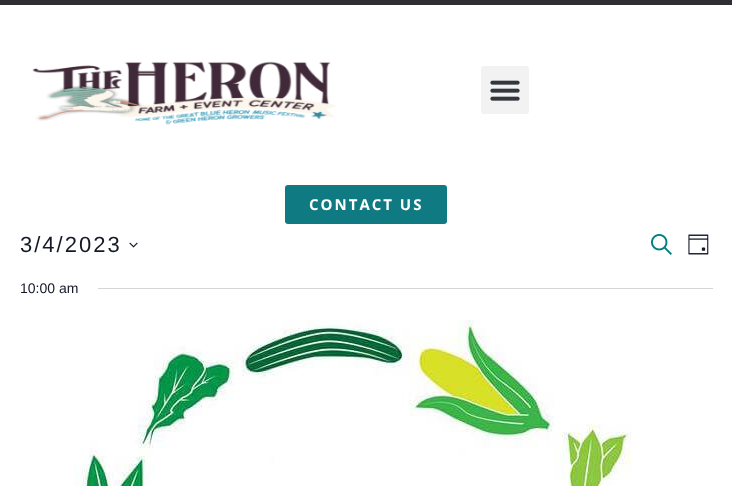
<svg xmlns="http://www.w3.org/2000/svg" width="732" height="486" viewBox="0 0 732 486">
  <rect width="100%" height="100%" fill="#fff"/>
  <path d="M0 0h732v5H0z" fill="#2f2f33"/>
  <image x="32" y="61" width="305" height="64" href="img/1.png"/>
  <rect x="481" y="66" width="48" height="48" rx="3" fill="#f2f2f2"/>
  <image x="490" y="80" width="30" height="21" href="img/2.png"/>
  <rect x="285" y="185" width="162" height="39" rx="3" fill="#107a83"/>
  <image x="129" y="242" width="9" height="6" href="img/3.png"/>
  <image x="651" y="234" width="21" height="21" href="img/4.png"/>
  <image x="688" y="234" width="21" height="21" href="img/5.png"/>
  <path d="M98 288h615v1H98z" fill="#d5d5d5"/>
  <image x="74" y="320" width="557" height="166" href="img/6.png"/>
  <text x="309" y="210" font-family="Open Sans" font-size="15" font-weight="bold" letter-spacing="2" fill="#fff">CONTACT US</text>
  <text x="20" y="252" font-family="Liberation Sans" font-size="22" letter-spacing="2" fill="#141827">3/4/2023</text>
  <text x="20" y="293" font-family="Liberation Sans" font-size="14" fill="#141827">10:00 am</text>
</svg>
